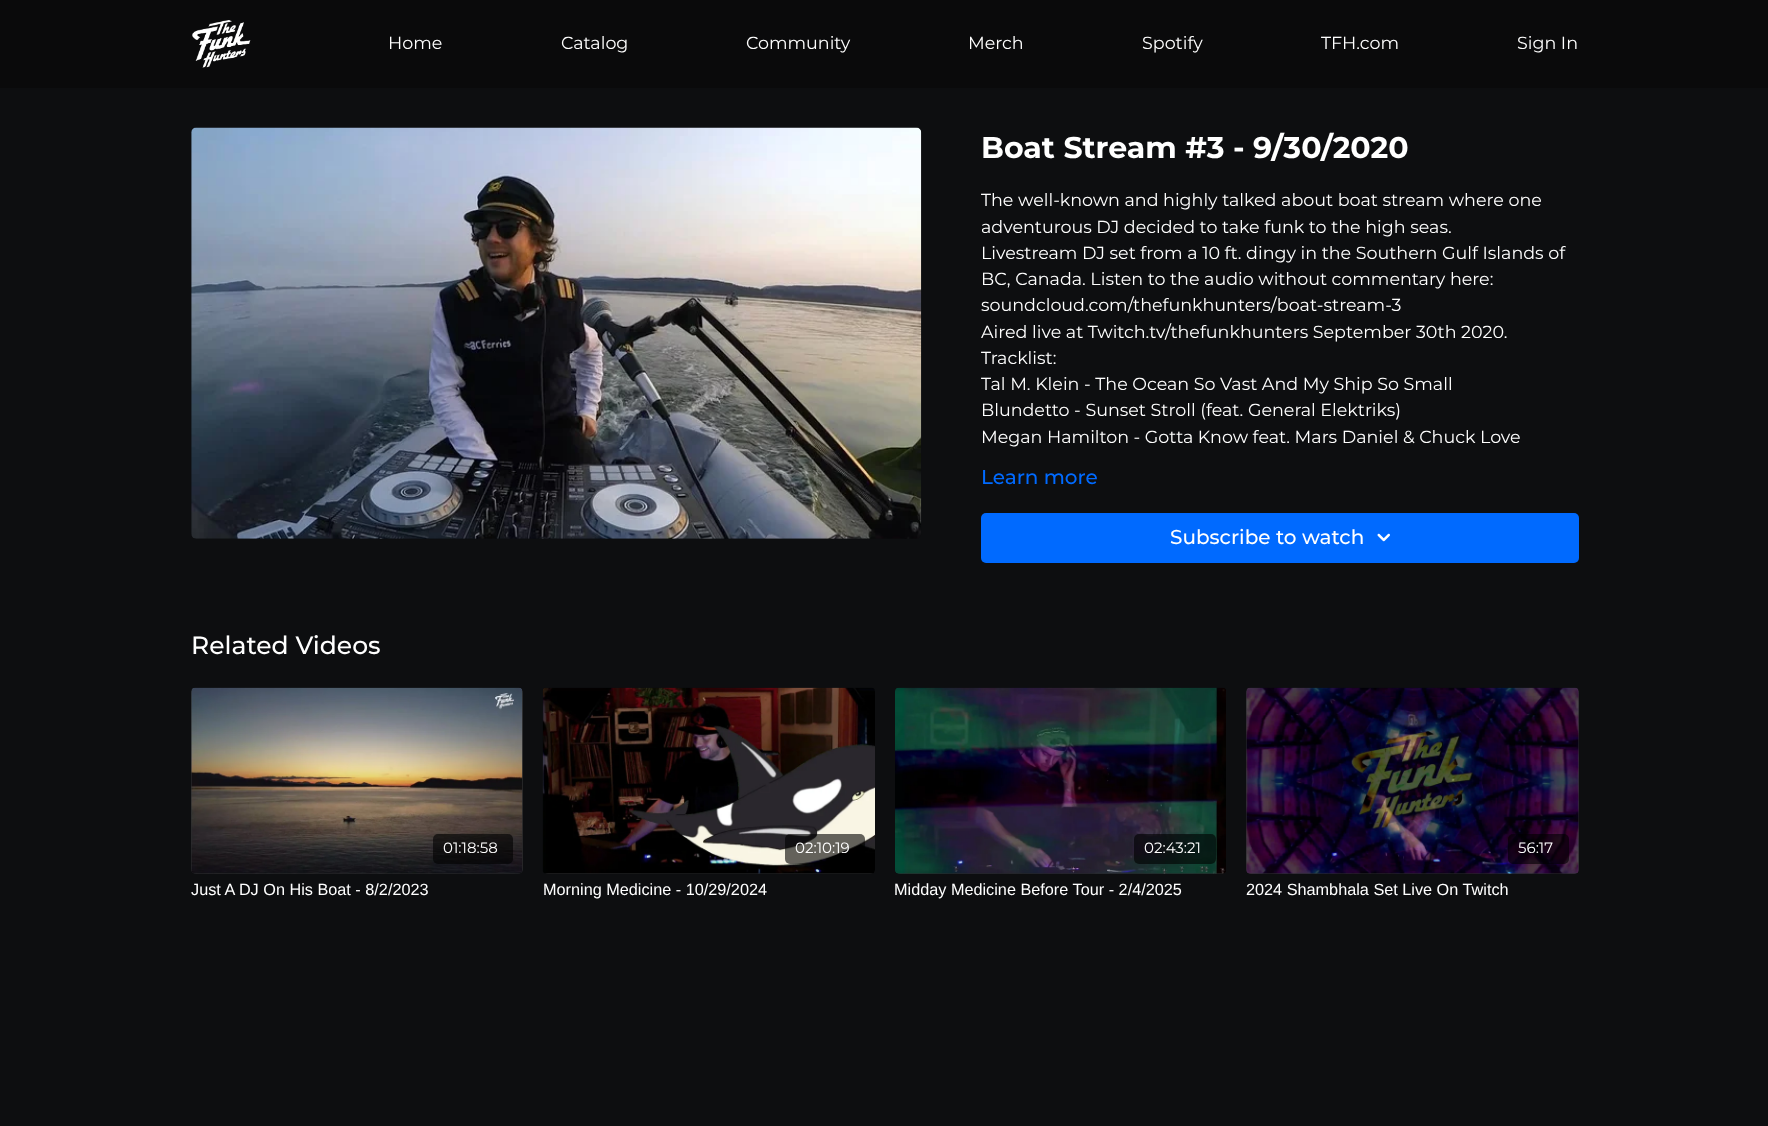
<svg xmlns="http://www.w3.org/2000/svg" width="1768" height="1126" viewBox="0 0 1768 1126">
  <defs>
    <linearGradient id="g1" gradientUnits="userSpaceOnUse" x1="191" y1="781" x2="523" y2="781"><stop offset="0.08" stop-color="#2c2d2f"/><stop offset="0.18" stop-color="#2a2b2d"/><stop offset="0.33" stop-color="#28292a"/></linearGradient>
    <linearGradient id="g2" gradientUnits="userSpaceOnUse" x1="543" y1="781" x2="875" y2="781"><stop offset="0.08" stop-color="#2c2d2f"/><stop offset="0.18" stop-color="#2a2b2d"/><stop offset="0.33" stop-color="#28292a"/></linearGradient>
    <linearGradient id="g3" gradientUnits="userSpaceOnUse" x1="895" y1="781" x2="1226" y2="781"><stop offset="0.08" stop-color="#2c2d2f"/><stop offset="0.18" stop-color="#2a2b2d"/><stop offset="0.33" stop-color="#28292a"/></linearGradient>
    <linearGradient id="g4" gradientUnits="userSpaceOnUse" x1="1246" y1="781" x2="1579" y2="781"><stop offset="0.08" stop-color="#2c2d2f"/><stop offset="0.18" stop-color="#2a2b2d"/><stop offset="0.33" stop-color="#28292a"/></linearGradient>
  </defs>
  <rect width="100%" height="100%" fill="#0d0e10"/>
  <path d="M0 0h1768v88H0z" fill="#0a0a0b"/>
  <image x="192" y="20" width="59" height="48" href="img/1.png"/>
  <image x="191" y="127" width="731" height="412" href="img/2.png"/>
  <rect x="981" y="513" width="598" height="50" rx="5" fill="#006aff"/>
  <image x="1377" y="533" width="13" height="9" href="img/3.png"/>
  <rect x="191" y="688" width="332" height="186" rx="5" fill="url(#g1)"/>
  <image x="191" y="687" width="332" height="187" href="img/4.png"/>
  <rect x="433" y="834" width="80" height="30" rx="5" fill="#00000099"/>
  <rect x="543" y="688" width="332" height="186" rx="5" fill="url(#g2)"/>
  <image x="542" y="687" width="333" height="187" href="img/5.png"/>
  <rect x="785" y="834" width="80" height="30" rx="5" fill="#00000099"/>
  <rect x="895" y="688" width="331" height="186" rx="5" fill="url(#g3)"/>
  <image x="895" y="687" width="331" height="187" href="img/6.png"/>
  <rect x="1134" y="834" width="82" height="30" rx="5" fill="#00000099"/>
  <rect x="1246" y="688" width="333" height="186" rx="5" fill="url(#g4)"/>
  <image x="1246" y="687" width="333" height="187" href="img/7.png"/>
  <rect x="1508" y="834" width="61" height="30" rx="5" fill="#00000099"/>
  <g font-family="Montserrat" font-size="17.5" fill="#fff">
    <text x="388" y="49">Home</text>
    <text x="561" y="49">Catalog</text>
    <text x="746" y="49">Community</text>
    <text x="968" y="49">Merch</text>
    <text x="1142" y="49">Spotify</text>
    <text x="1321" y="49">TFH.com</text>
    <text x="1517" y="49">Sign In</text>
  </g>
  <text x="981" y="158" font-family="Montserrat" font-size="30" font-weight="bold" fill="#fff">Boat Stream #3 - 9/30/2020</text>
  <g font-family="Montserrat" font-size="17.5" fill="#fff">
    <text x="981" y="206">The well-known and highly talked about boat stream where one</text>
    <text x="981" y="233">adventurous DJ decided to take funk to the high seas.</text>
    <text x="981" y="259">Livestream DJ set from a 10 ft. dingy in the Southern Gulf Islands of</text>
    <text x="981" y="285">BC, Canada. Listen to the audio without commentary here:</text>
    <text x="981" y="311">soundcloud.com/thefunkhunters/boat-stream-3</text>
    <text x="981" y="338">Aired live at Twitch.tv/thefunkhunters September 30th 2020.</text>
    <text x="981" y="364">Tracklist:</text>
    <text x="981" y="390">Tal M. Klein - The Ocean So Vast And My Ship So Small</text>
    <text x="981" y="416">Blundetto - Sunset Stroll (feat. General Elektriks)</text>
    <text x="981" y="443">Megan Hamilton - Gotta Know feat. Mars Daniel &amp; Chuck Love</text>
  </g>
  <text x="981" y="484" font-family="Montserrat" font-size="20" font-weight="500" fill="#006aff">Learn more</text>
  <text x="1170" y="544" font-family="Montserrat" font-size="20" font-weight="500" fill="#fff">Subscribe to watch</text>
  <text x="191" y="654" font-family="Montserrat" font-size="25" font-weight="500" fill="#fff">Related Videos</text>
  <text x="443" y="853" font-family="Montserrat" font-size="15" fill="#fff">01:18:58</text>
  <text x="191" y="895" font-family="Liberation Sans" font-size="16.25" fill="#fff">Just A DJ On His Boat - 8/2/2023</text>
  <text x="795" y="853" font-family="Montserrat" font-size="15" fill="#fff">02:10:19</text>
  <text x="543" y="895" font-family="Liberation Sans" font-size="16.25" fill="#fff">Morning Medicine - 10/29/2024</text>
  <text x="1144" y="853" font-family="Montserrat" font-size="15" fill="#fff">02:43:21</text>
  <text x="894" y="895" font-family="Liberation Sans" font-size="16.25" fill="#fff">Midday Medicine Before Tour - 2/4/2025</text>
  <text x="1518" y="853" font-family="Montserrat" font-size="15" fill="#fff">56:17</text>
  <text x="1246" y="895" font-family="Liberation Sans" font-size="16.25" fill="#fff">2024 Shambhala Set Live On Twitch</text>
</svg>
